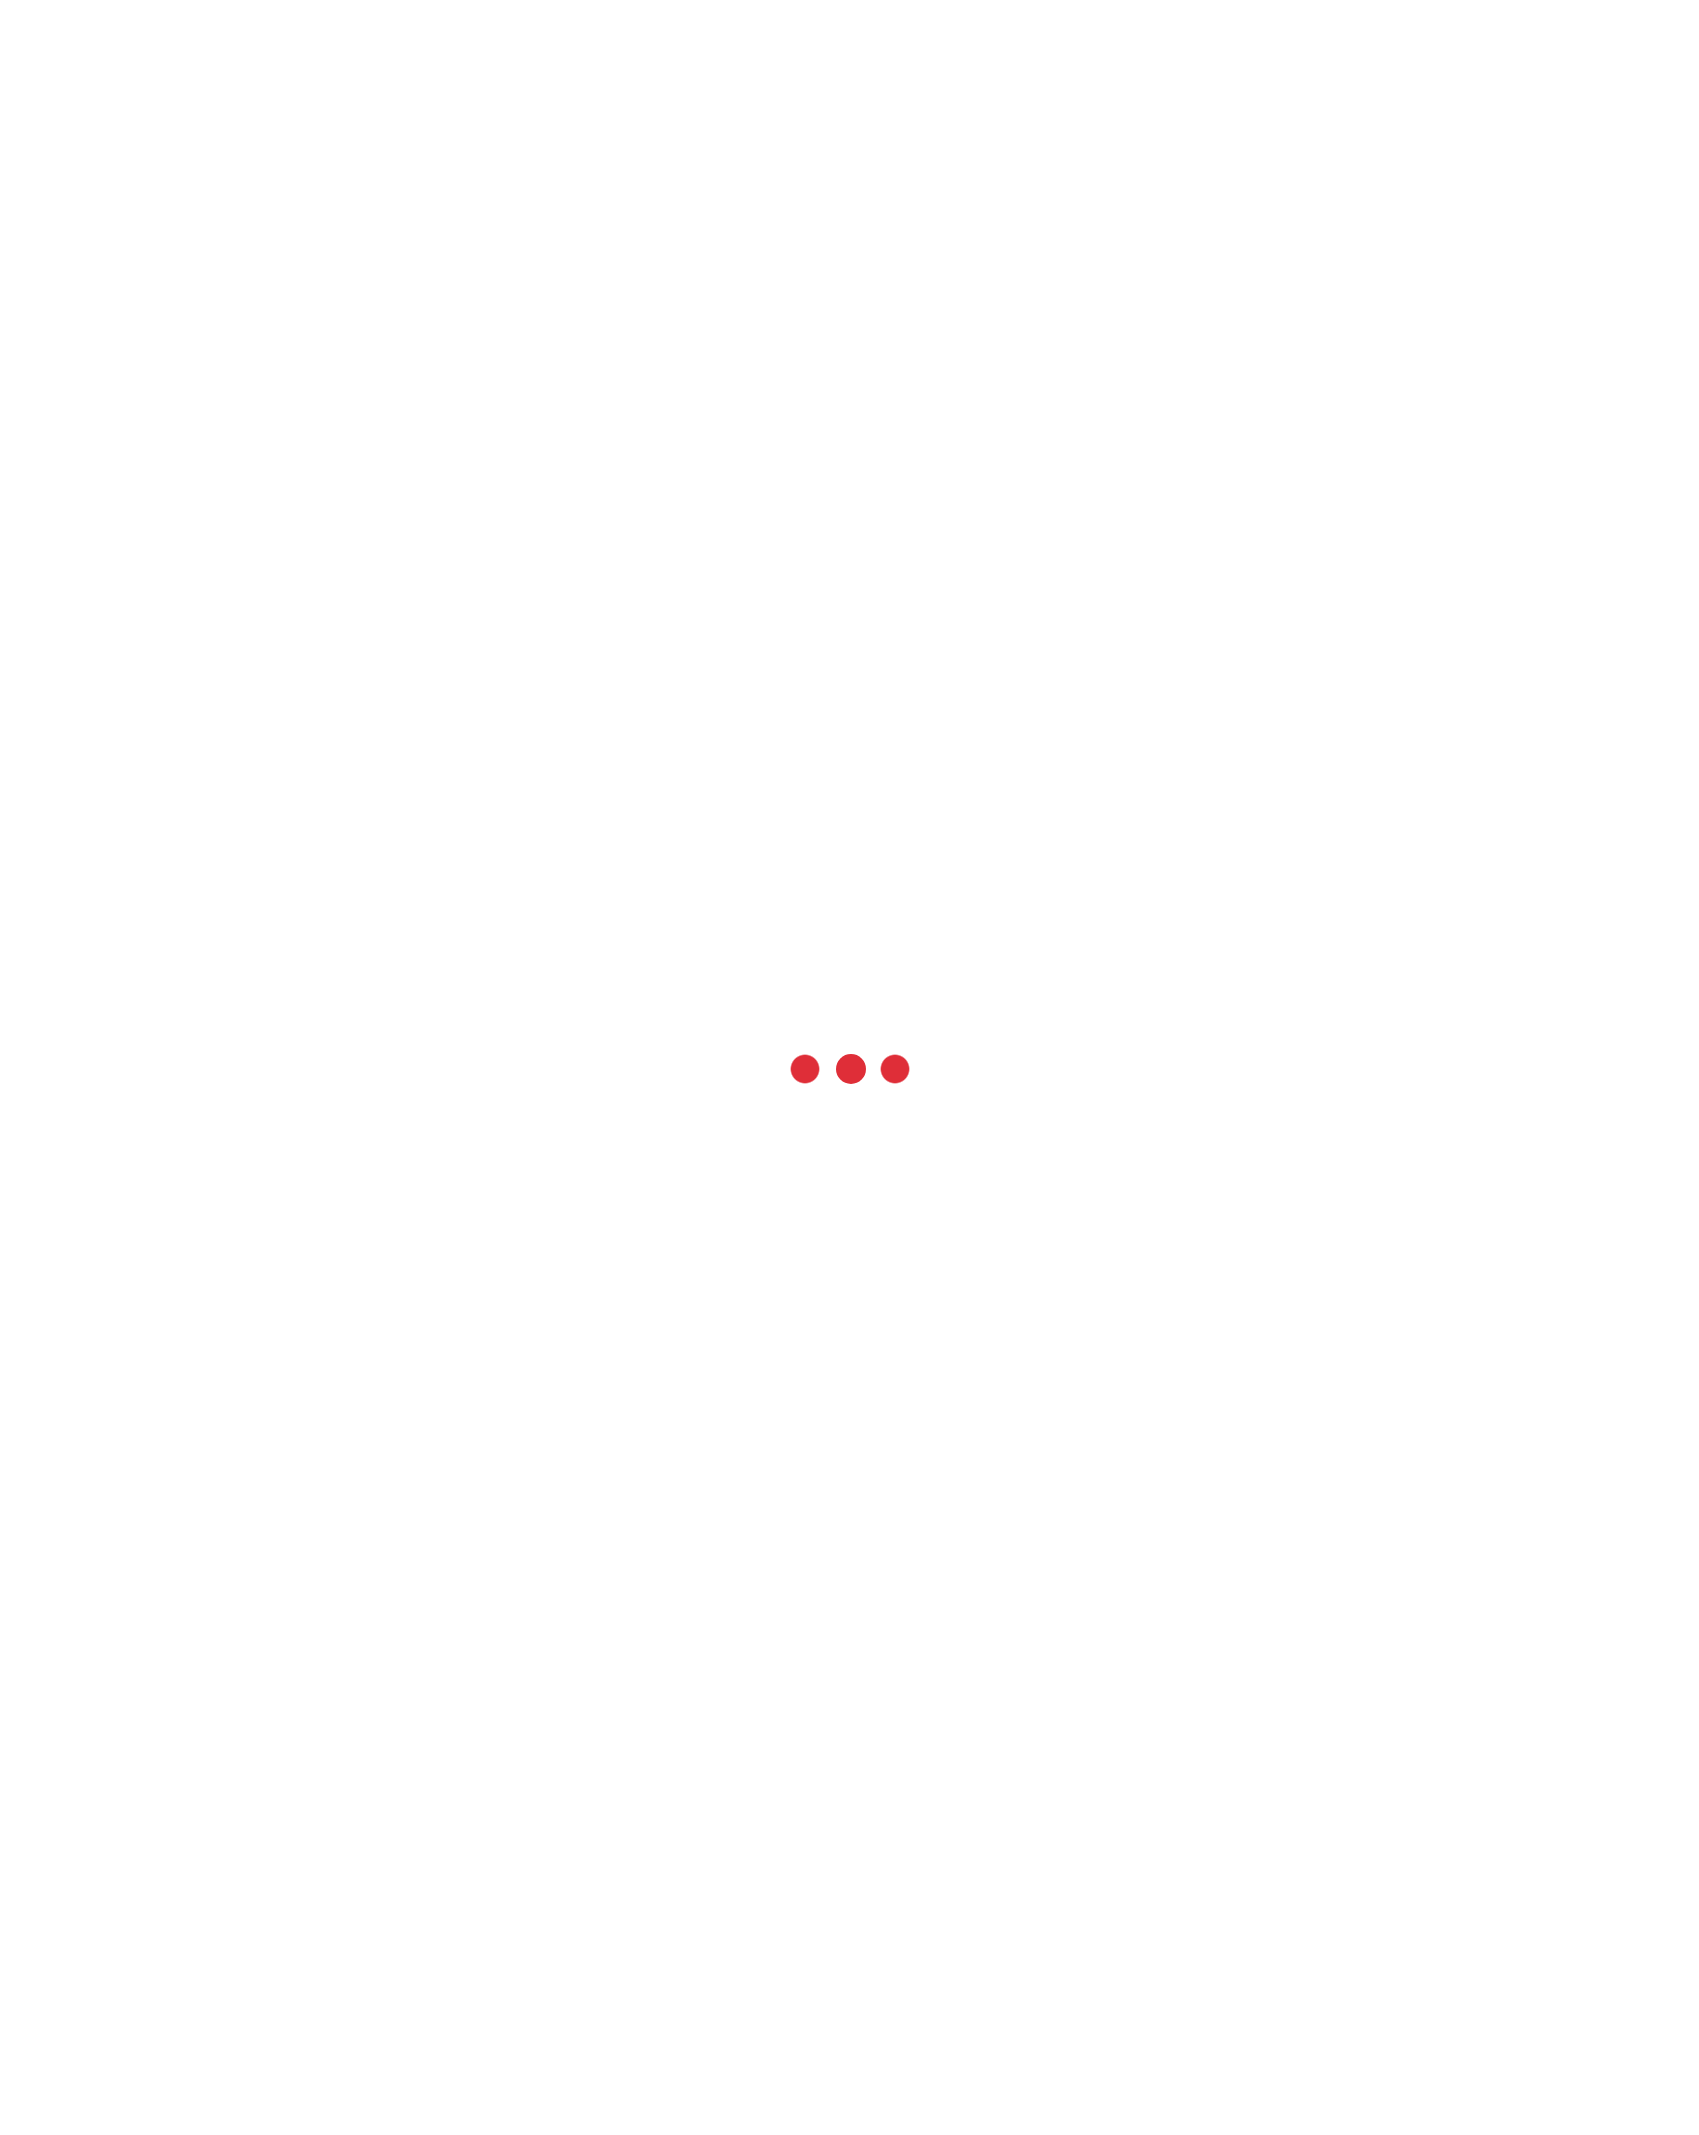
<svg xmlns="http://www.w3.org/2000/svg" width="1699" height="2135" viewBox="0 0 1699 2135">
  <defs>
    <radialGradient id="g1" gradientUnits="userSpaceOnUse" cx="895" cy="1069" r="15"><stop offset="0.9" stop-color="#df2e38"/><stop offset="1" stop-color="#fff"/></radialGradient>
    <radialGradient id="g2" gradientUnits="userSpaceOnUse" cx="805" cy="1069" r="15"><stop offset="0.9" stop-color="#df2e38"/><stop offset="1" stop-color="#fff"/></radialGradient>
  </defs>
  <rect width="100%" height="100%" fill="#fff"/>
  <path d="M880 1054h30v30H880z" fill="url(#g1)"/>
  <path d="M790 1054h30v30H790z" fill="url(#g2)"/>
  <circle cx="851" cy="1069" r="15" fill="#df2e38"/>
</svg>
